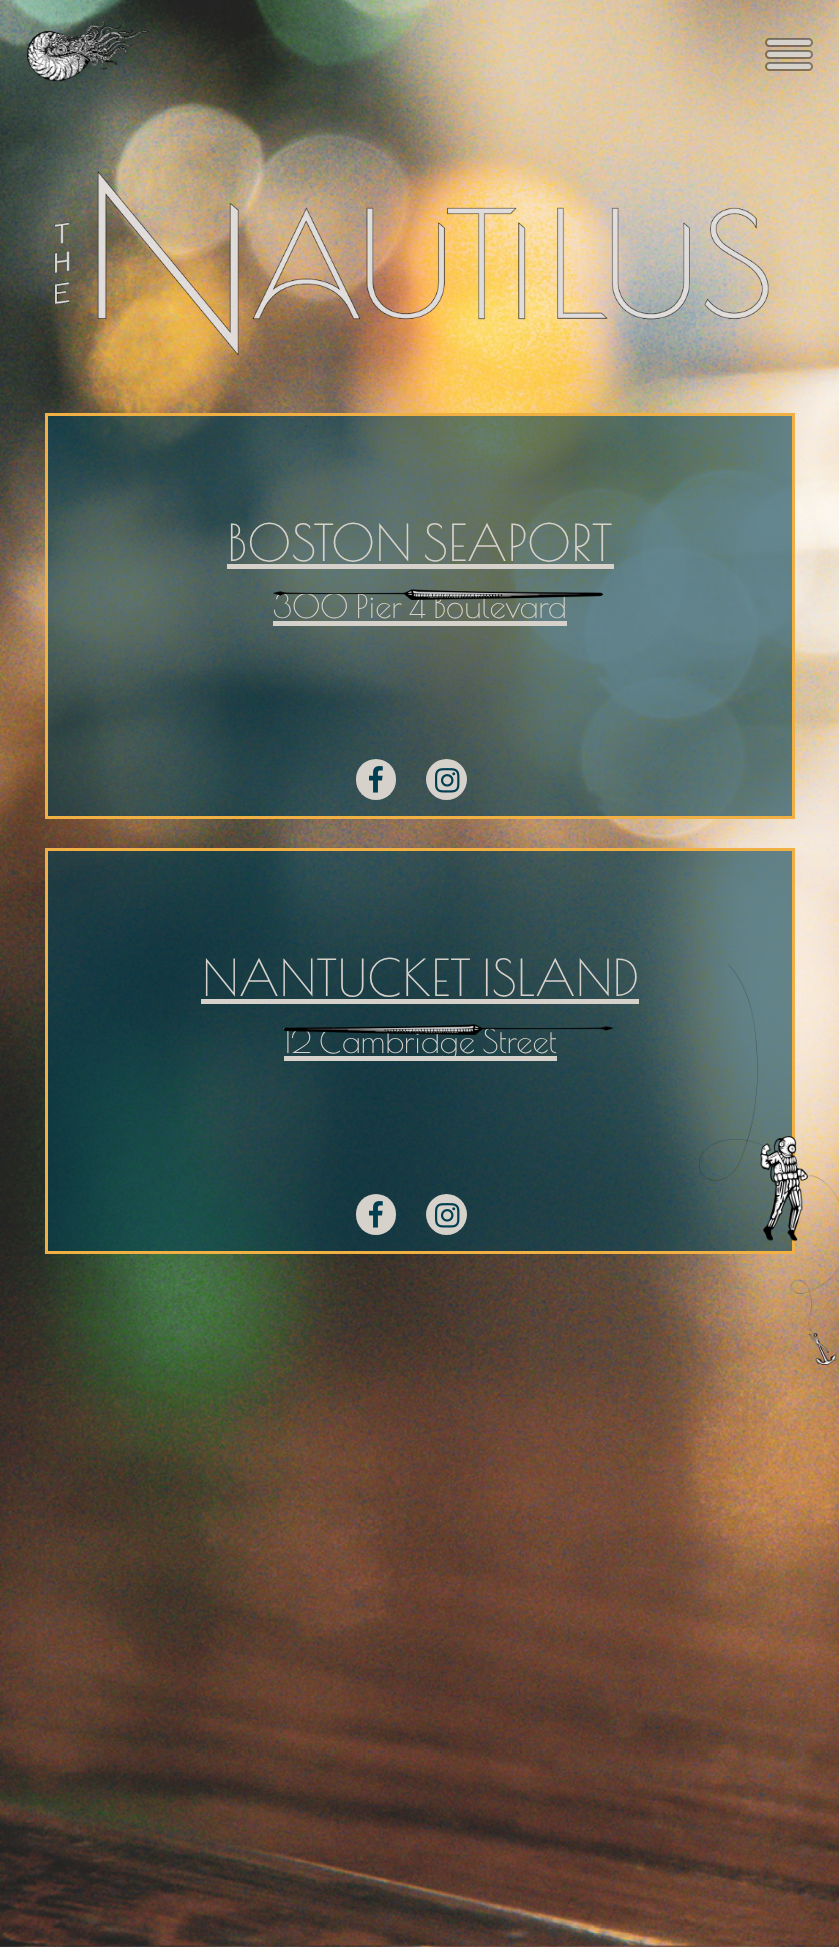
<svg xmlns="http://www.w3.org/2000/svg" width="839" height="1947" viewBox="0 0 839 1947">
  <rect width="100%" height="100%" fill="#fff"/>
  <image x="0" y="0" width="839" height="1947" href="img/1.png"/>
  <image x="27" y="21" width="122" height="61" href="img/2.png"/>
  <rect x="767" y="39" width="45" height="6" rx="3" fill="#d6d1cb"/>
  <rect x="766" y="39" width="46" height="7" rx="3.5" fill="none" stroke="#00000066" stroke-width="2"/>
  <rect x="767" y="51" width="45" height="6" rx="3" fill="#d6d1cb"/>
  <rect x="766" y="51" width="46" height="7" rx="3.5" fill="none" stroke="#00000066" stroke-width="2"/>
  <rect x="767" y="63" width="45" height="6" rx="3" fill="#d6d1cb"/>
  <rect x="766" y="63" width="46" height="7" rx="3.5" fill="none" stroke="#00000066" stroke-width="2"/>
  <image x="54" y="171" width="715" height="185" href="img/3.png"/>
  <path d="M46.5 414.5h747v403H46.5z" fill="#003e5199" stroke="#f1b044" stroke-width="3"/>
  <path d="M227 564h387v5H227z" fill="#d6d1cb"/>
  <path d="M273 621h294v5H273z" fill="#d6d1cb"/>
  <rect x="356" y="759" width="40" height="41" rx="20" fill="#d6d1cb"/>
  <image x="369" y="766" width="14" height="27" href="img/5.png"/>
  <circle cx="446.5" cy="779.5" r="20.5" fill="#d6d1cb"/>
  <image x="435" y="768" width="25" height="25" href="img/6.png"/>
  <path d="M46.5 849.5h747v403H46.5z" fill="#003e5199" stroke="#f1b044" stroke-width="3"/>
  <path d="M201 999h438v5H201z" fill="#d6d1cb"/>
  <path d="M284 1056h273v5H284z" fill="#d6d1cb"/>
  <image x="699" y="964" width="140" height="401" href="img/8.png"/>
  <rect x="356" y="1194" width="40" height="41" rx="20" fill="#d6d1cb"/>
  <image x="369" y="1201" width="14" height="27" href="img/5.png"/>
  <circle cx="446.5" cy="1214.5" r="20.5" fill="#d6d1cb"/>
  <image x="435" y="1203" width="25" height="25" href="img/6.png"/>
  <text x="227" y="561" font-family="Poiret One" font-size="49.9" fill="#d6d1cb">BOSTON SEAPORT</text>
  <text x="273" y="618" font-family="Poiret One" font-size="32.75" fill="#d6d1cb">300 Pier 4 Boulevard</text>
  <image x="273" y="589" width="330" height="11" href="img/4.png"/>
  <text x="202" y="996" font-family="Poiret One" font-size="49.9" fill="#d6d1cb">NANTUCKET ISLAND</text>
  <text x="283" y="1053" font-family="Poiret One" font-size="32.75" fill="#d6d1cb">12 Cambridge Street</text>
  <image x="283" y="1024" width="331" height="11" href="img/7.png"/>
</svg>
